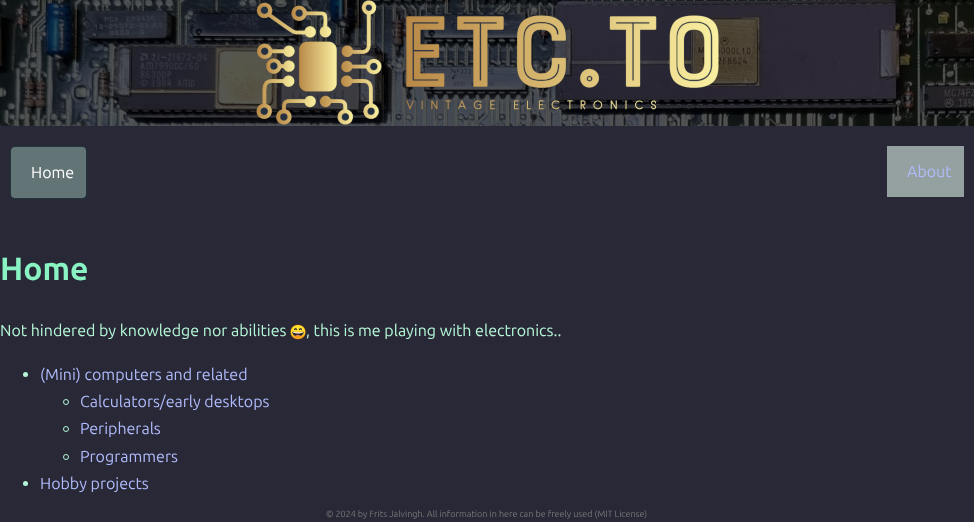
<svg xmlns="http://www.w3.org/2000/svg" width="974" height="522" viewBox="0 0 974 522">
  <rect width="100%" height="100%" fill="#282837"/>
  <image x="0" y="0" width="974" height="126" href="img/1.png"/>
  <image x="256" y="0" width="463" height="125" href="img/2.png"/>
  <rect x="10.5" y="146.5" width="76" height="52" rx="4.5" fill="none" stroke="#1f373a"/>
  <rect x="11" y="147" width="75" height="51" rx="4" fill="#637476"/>
  <path d="M887 146h77v51H887z" fill="#95a0a1"/>
  <image x="290" y="324" width="16" height="16" href="img/3.png"/>
  <circle cx="25.5" cy="374.5" r="2.5" fill="#b5f8d7"/>
  <circle cx="66" cy="402" r="2.5" fill="none" stroke="#b5f8d7"/>
  <circle cx="66" cy="429" r="2.5" fill="none" stroke="#b5f8d7"/>
  <circle cx="66" cy="457" r="2.5" fill="none" stroke="#b5f8d7"/>
  <circle cx="25.5" cy="483.5" r="2.5" fill="#b5f8d7"/>
  <text x="31" y="178" font-family="Ubuntu" font-size="16" fill="#fff">Home</text>
  <text x="907" y="177" font-family="Ubuntu" font-size="16" fill="#b0bbfc">About</text>
  <text x="0" y="280" font-family="Ubuntu" font-size="32" font-weight="bold" fill="#8af3c3">Home</text>
  <g font-family="Ubuntu" font-size="16" fill="#b5f8d7">
    <text x="0" y="336">Not hindered by knowledge nor abilities</text>
    <text x="306" y="336">, this is me playing with electronics..</text>
  </g>
  <g font-family="Ubuntu" font-size="16" fill="#b0bbfc">
    <text x="40" y="380">(Mini) computers and related</text>
    <text x="80" y="407">Calculators/early desktops</text>
    <text x="80" y="434">Peripherals</text>
    <text x="80" y="462">Programmers</text>
    <text x="40" y="489">Hobby projects</text>
  </g>
  <text x="326" y="517" font-family="Ubuntu" font-size="9" fill="#777">© 2024 by Frits Jalvingh. All information in here can be freely used (MIT License)</text>
</svg>
